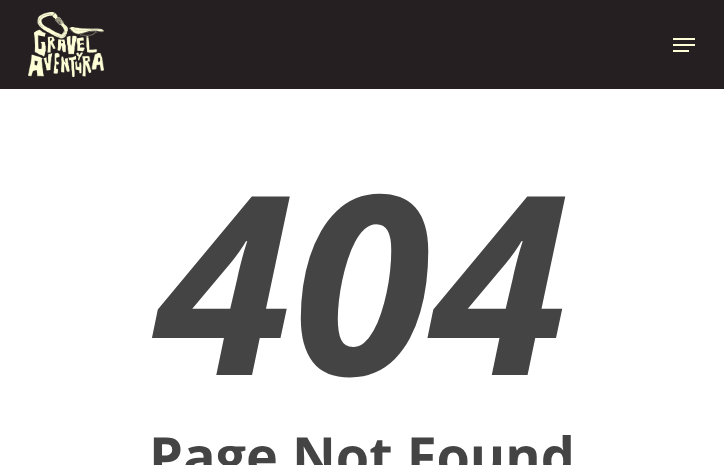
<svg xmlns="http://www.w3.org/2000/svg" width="724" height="465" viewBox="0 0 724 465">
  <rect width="100%" height="100%" fill="#fff"/>
  <path d="M0 0h724v89H0z" fill="#251f21"/>
  <image x="28" y="12" width="76" height="65" href="img/1.png"/>
  <path d="M673 38h22v2H673z" fill="#feffd7"/>
  <path d="M673 50h16v2H673z" fill="#feffd7"/>
  <path d="M673 44h22v2H673z" fill="#feffd7"/>
  <text x="155" y="375" font-family="Open Sans" font-size="250" font-weight="bold" font-style="italic" fill="#444">404</text>
  <text x="149" y="476" font-family="Open Sans" font-size="54" font-weight="bold" fill="#444">Page Not Found</text>
</svg>
